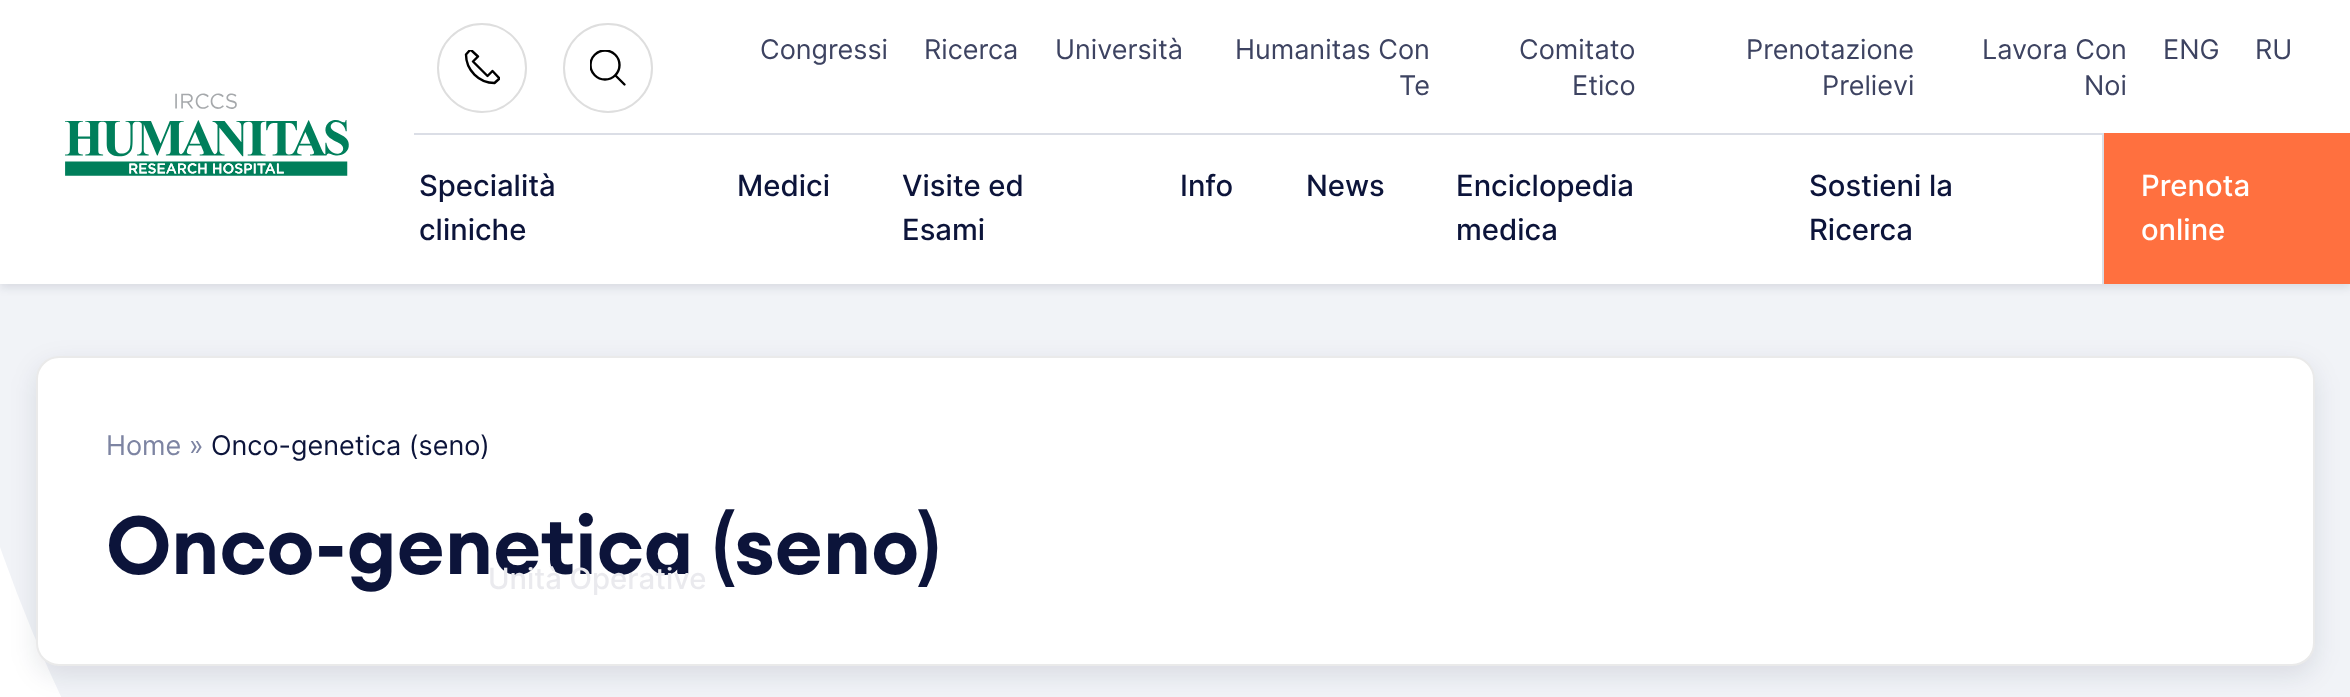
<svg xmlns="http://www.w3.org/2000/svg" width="2350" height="697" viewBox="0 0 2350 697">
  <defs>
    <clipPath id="clip1"><path d="M464 50h36v36H464z"/></clipPath>
    <clipPath id="clip2"><path d="M590 50h36v36H590z"/></clipPath>
  </defs>
  <rect width="100%" height="100%" fill="#fff"/>
  <image x="0" y="284" width="2350" height="413" href="img/2.png"/>
  <path d="M0 5h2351v283H0z" fill="#0c122d1a" filter="blur(4.5px)"/>
  <path d="M0 0h2350v284H0z" fill="#fff"/>
  <image x="65" y="93" width="284" height="83" href="img/1.png"/>
  <path d="M414 133h1688v2H414z" fill="#dbdee6"/>
  <circle cx="482" cy="68" r="44" fill="none" stroke="#dedede" stroke-width="2"/>
  <g clip-path="url(#clip1)">
    <path d="M492.5 71L487.5 76L473 61.5L478 56.5L470.5 49.5L466 54.5C466 70 479 83 494.5 83L499.5 78.5Z" fill="none" stroke="#000" stroke-width="2.4" stroke-linecap="round" stroke-linejoin="round"/>
  </g>
  <circle cx="608" cy="68" r="44" fill="none" stroke="#dedede" stroke-width="2"/>
  <g clip-path="url(#clip2)">
    <circle cx="605" cy="65" r="14.5" fill="none" stroke="#000" stroke-width="2.4"/>
  </g>
  <path d="M624.5 84.5L615.5 75.5" fill="none" stroke="#000" stroke-width="2.4" stroke-linecap="round" stroke-linejoin="round"/>
  <path d="M2104 133h246v151H2104z" fill="#ff703f"/>
  <path d="M2102 133h2v151H2102z" fill="#dbdee6"/>
  <rect x="36" y="365" width="2279" height="310" rx="23" fill="#0c122d1a" filter="blur(13.5px)"/>
  <rect x="37" y="357" width="2277" height="308" rx="22" fill="#fff" stroke="#eaeaea" stroke-width="2"/>
  <g font-family="Inter" font-size="27" fill="#3d4361">
    <text x="760" y="59">Congressi</text>
    <text x="924" y="59">Ricerca</text>
    <text x="1055" y="59">Università</text>
    <text x="1235" y="59">Humanitas Con</text>
    <text x="1399" y="95">Te</text>
    <text x="1519" y="59">Comitato</text>
    <text x="1572" y="95">Etico</text>
    <text x="1746" y="59">Prenotazione</text>
    <text x="1822" y="95">Prelievi</text>
    <text x="1982" y="59">Lavora Con</text>
    <text x="2084" y="95">Noi</text>
    <text x="2163" y="59">ENG</text>
    <text x="2255" y="59">RU</text>
  </g>
  <g font-family="Inter" font-size="29.25" font-weight="500" fill="#0c143a">
    <text x="419" y="196">Specialità</text>
    <text x="419" y="240">cliniche</text>
    <text x="737" y="196">Medici</text>
    <text x="902" y="196">Visite ed</text>
    <text x="902" y="240">Esami</text>
    <text x="1180" y="196">Info</text>
    <text x="1306" y="196">News</text>
    <text x="1456" y="196">Enciclopedia</text>
    <text x="1456" y="240">medica</text>
    <text x="1809" y="196">Sostieni la</text>
    <text x="1809" y="240">Ricerca</text>
  </g>
  <g font-family="Inter" font-size="29.25" font-weight="500" fill="#fff">
    <text x="2141" y="196">Prenota</text>
    <text x="2141" y="240">online</text>
  </g>
  <text x="106" y="455" font-family="Inter" font-size="27" fill="#7d84a2">Home »</text>
  <text x="211" y="455" font-family="Inter" font-size="27" fill="#0c143a">Onco-genetica (seno)</text>
  <text x="106" y="574" font-family="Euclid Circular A" font-size="81" font-weight="600" fill="#0c143a">Onco-genetica (seno)</text>
  <text x="488" y="589" font-family="Inter" font-size="29.25" font-weight="500" fill="#eaeaee">Unità Operative</text>
</svg>
